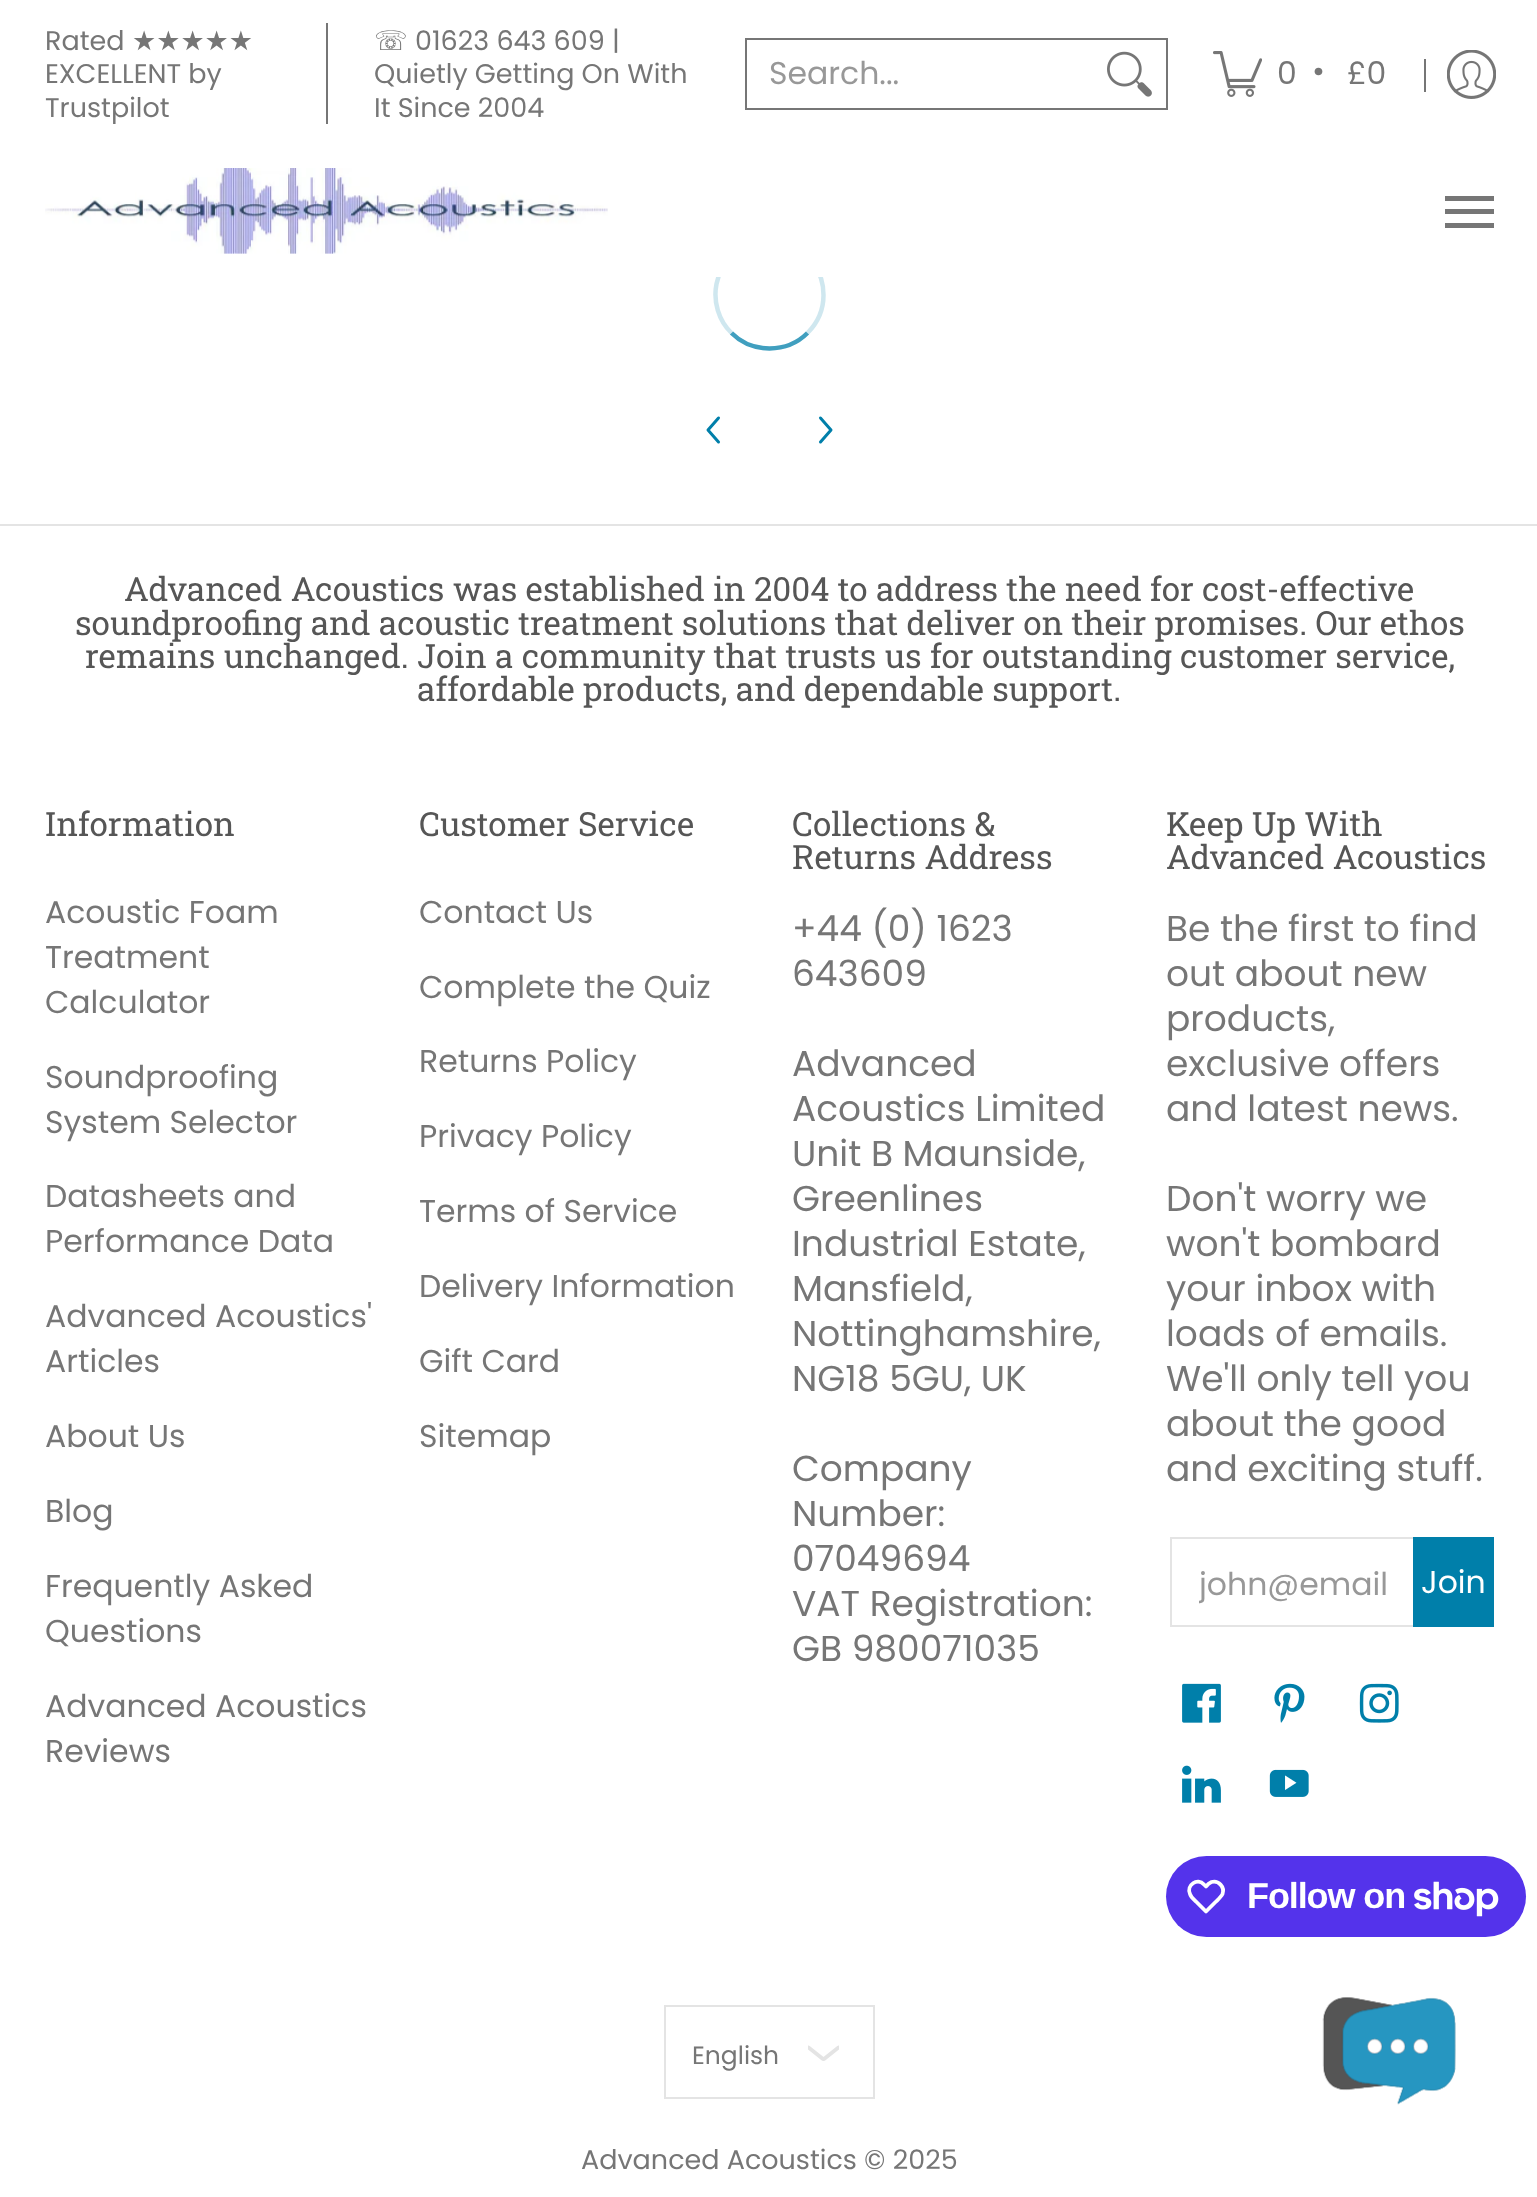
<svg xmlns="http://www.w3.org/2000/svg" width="1537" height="2197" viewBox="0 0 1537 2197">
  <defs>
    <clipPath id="clip1"><path d="M808 2036h31v32H808z"/></clipPath>
    <clipPath id="clip2"><path d="M1199 1562h189v47H1199z"/></clipPath>
  </defs>
  <rect width="100%" height="100%" fill="#fff"/>
  <path d="M807.5 333C787 353.5 752 353.5 731.5 333" fill="none" stroke="#409fbf" stroke-width="4.5"/>
  <path d="M731.5 333C718.5 320.5 713 301.5 716.5 284C718.5 274 724 264 731.5 256.5C765 223 823.5 247 823.5 295C823.5 309 817.5 323 807.5 333" fill="none" stroke="#409fbf40" stroke-width="4.5"/>
  <path d="M716 238h107v39H716z" fill="#fff"/>
  <path d="M326 23h2v101H326z" fill="#767676"/>
  <path d="M746 39h421v70H746z" fill="none" stroke="#767676" stroke-width="2"/>
  <image x="1107" y="51" width="45" height="46" href="img/1.png"/>
  <image x="1213" y="51" width="49" height="46" href="img/2.png"/>
  <path d="M1424 59h2v33H1424z" fill="#767676"/>
  <image x="1447" y="50" width="49" height="49" href="img/3.png"/>
  <image x="45" y="168" width="563" height="86" href="img/4.png"/>
  <path d="M1445 196h49v5H1445z" fill="#767676"/>
  <path d="M1445 223h49v5H1445z" fill="#767676"/>
  <path d="M1445 209h49v5H1445z" fill="#767676"/>
  <path d="M0 524h1537v2H0z" fill="#e4e4e4"/>
  <path d="M718.5 418L708 430L718.5 442" fill="none" stroke="#007faa" stroke-width="3" stroke-linecap="round" stroke-linejoin="round"/>
  <path d="M820.5 442L831 430L820.5 418" fill="none" stroke="#007faa" stroke-width="3" stroke-linecap="round" stroke-linejoin="round"/>
  <path d="M1171 1538h246v88H1171z" fill="none" stroke="#e4e4e4" stroke-width="2"/>
  <path d="M1413 1537h81v90H1413z" fill="#007faa"/>
  <image x="1182" y="1683" width="39" height="40" href="img/5.png"/>
  <image x="1274" y="1683" width="31" height="40" href="img/6.png"/>
  <image x="1359" y="1683" width="40" height="40" href="img/7.png"/>
  <image x="1182" y="1765" width="39" height="38" href="img/8.png"/>
  <image x="1269" y="1769" width="40" height="28" href="img/9.png"/>
  <rect x="1166" y="1856" width="360" height="81" rx="40.5" fill="#5433eb"/>
  <path d="M1204 1884.5L1206 1886.5C1207.5 1884.5 1209 1883 1211.5 1882C1218.5 1880 1225 1887 1222.5 1894C1221 1897 1218 1899.5 1215.5 1902L1206 1911.5L1196.5 1902C1194 1899.5 1191 1897.5 1190 1894C1186 1885 1197.5 1877.5 1204 1884.5Z" fill="none" stroke="#fff" stroke-width="3.8" stroke-linejoin="round"/>
  <image x="1414" y="1881" width="85" height="36" href="img/10.png"/>
  <path d="M665 2006h209v92H665z" fill="none" stroke="#e4e4e4" stroke-width="2"/>
  <g clip-path="url(#clip1)">
    <path d="M808.5 2047.5L823 2059C823.5 2059 824 2059 824 2059L838.5 2047.5" fill="none" stroke="#e4e4e4" stroke-width="3.9" stroke-linecap="round" stroke-linejoin="round"/>
  </g>
  <image x="1322" y="1997" width="134" height="108" href="img/11.png"/>
  <text x="45" y="50" font-family="Poppins" font-size="27" fill="#767676">Rated</text>
  <text x="132" y="50" font-family="DejaVu Sans" font-size="27" fill="#767676">★★★★★</text>
  <g font-family="Poppins" font-size="27" fill="#767676">
    <text x="45" y="83">EXCELLENT by</text>
    <text x="45" y="117">Trustpilot</text>
  </g>
  <text x="374" y="50" font-family="DejaVu Sans" font-size="27" fill="#767676">☏</text>
  <g font-family="Poppins" font-size="27" fill="#767676">
    <text x="415" y="50">01623 643 609 |</text>
    <text x="374" y="83">Quietly Getting On With</text>
    <text x="374" y="117">It Since 2004</text>
  </g>
  <text x="769" y="84" font-family="Poppins" font-size="31.5" fill="#989898">Search...</text>
  <g font-family="Poppins" font-size="31.5" fill="#767676">
    <text x="1277" y="84">0</text>
    <text x="1312" y="82">•</text>
    <text x="1347" y="84">£0</text>
  </g>
  <g font-family="Roboto Slab" font-size="33.3" fill="#565656">
    <text x="124" y="601">Advanced Acoustics was established in 2004 to address the need for cost-effective</text>
    <text x="75" y="635">soundproofing and acoustic treatment solutions that deliver on their promises. Our ethos</text>
    <text x="85" y="668">remains unchanged. Join a community that trusts us for outstanding customer service,</text>
    <text x="417" y="701">affordable products, and dependable support.</text>
    <text x="45" y="836">Information</text>
  </g>
  <g font-family="Poppins" font-size="31.5" fill="#767676">
    <text x="45" y="923">Acoustic Foam</text>
    <text x="45" y="968">Treatment</text>
    <text x="45" y="1013">Calculator</text>
    <text x="45" y="1088">Soundproofing</text>
    <text x="45" y="1133">System Selector</text>
    <text x="45" y="1207">Datasheets and</text>
    <text x="45" y="1252">Performance Data</text>
    <text x="45" y="1327">Advanced Acoustics'</text>
    <text x="45" y="1372">Articles</text>
    <text x="45" y="1447">About Us</text>
    <text x="45" y="1522">Blog</text>
    <text x="45" y="1597">Frequently Asked</text>
    <text x="45" y="1642">Questions</text>
    <text x="45" y="1717">Advanced Acoustics</text>
    <text x="45" y="1762">Reviews</text>
  </g>
  <text x="419" y="836" font-family="Roboto Slab" font-size="33.3" fill="#565656">Customer Service</text>
  <g font-family="Poppins" font-size="31.5" fill="#767676">
    <text x="419" y="923">Contact Us</text>
    <text x="419" y="998">Complete the Quiz</text>
    <text x="419" y="1072">Returns Policy</text>
    <text x="419" y="1147">Privacy Policy</text>
    <text x="419" y="1222">Terms of Service</text>
    <text x="419" y="1297">Delivery Information</text>
    <text x="419" y="1372">Gift Card</text>
    <text x="419" y="1447">Sitemap</text>
  </g>
  <g font-family="Roboto Slab" font-size="33.3" fill="#565656">
    <text x="792" y="836">Collections &amp;</text>
    <text x="792" y="869">Returns Address</text>
  </g>
  <g font-family="Poppins" font-size="36" fill="#767676">
    <text x="792" y="941">+44 (0) 1623</text>
    <text x="792" y="986">643609</text>
    <text x="792" y="1076">Advanced</text>
    <text x="792" y="1121">Acoustics Limited</text>
    <text x="792" y="1166">Unit B Maunside,</text>
    <text x="792" y="1211">Greenlines</text>
    <text x="792" y="1256">Industrial Estate,</text>
    <text x="792" y="1301">Mansfield,</text>
    <text x="792" y="1346">Nottinghamshire,</text>
    <text x="792" y="1391">NG18 5GU, UK</text>
    <text x="792" y="1481">Company</text>
    <text x="792" y="1526">Number:</text>
    <text x="792" y="1571">07049694</text>
    <text x="792" y="1616">VAT Registration:</text>
    <text x="792" y="1661">GB 980071035</text>
  </g>
  <g font-family="Roboto Slab" font-size="33.3" fill="#565656">
    <text x="1166" y="836">Keep Up With</text>
    <text x="1166" y="869">Advanced Acoustics</text>
  </g>
  <g font-family="Poppins" font-size="36" fill="#767676">
    <text x="1166" y="941">Be the first to find</text>
    <text x="1166" y="986">out about new</text>
    <text x="1166" y="1031">products,</text>
    <text x="1166" y="1076">exclusive offers</text>
    <text x="1166" y="1121">and latest news.</text>
    <text x="1166" y="1211">Don't worry we</text>
    <text x="1166" y="1256">won't bombard</text>
    <text x="1166" y="1301">your inbox with</text>
    <text x="1166" y="1346">loads of emails.</text>
    <text x="1166" y="1391">We'll only tell you</text>
    <text x="1166" y="1436">about the good</text>
    <text x="1166" y="1481">and exciting stuff.</text>
  </g>
  <g clip-path="url(#clip2)">
    <text x="1199" y="1595" font-family="Poppins" font-size="31.5" fill="#989898">john@email</text>
  </g>
  <text x="1421" y="1593" font-family="Poppins" font-size="31.5" fill="#fff">Join</text>
  <text x="1247" y="1908" font-family="Liberation Sans" font-size="36" font-weight="bold" letter-spacing="-1.1" fill="#fff">Follow on</text>
  <text x="692" y="2064" font-family="Poppins" font-size="25" fill="#767676">English</text>
  <text x="581" y="2169" font-family="Poppins" font-size="27" fill="#767676">Advanced Acoustics © 2025</text>
</svg>
